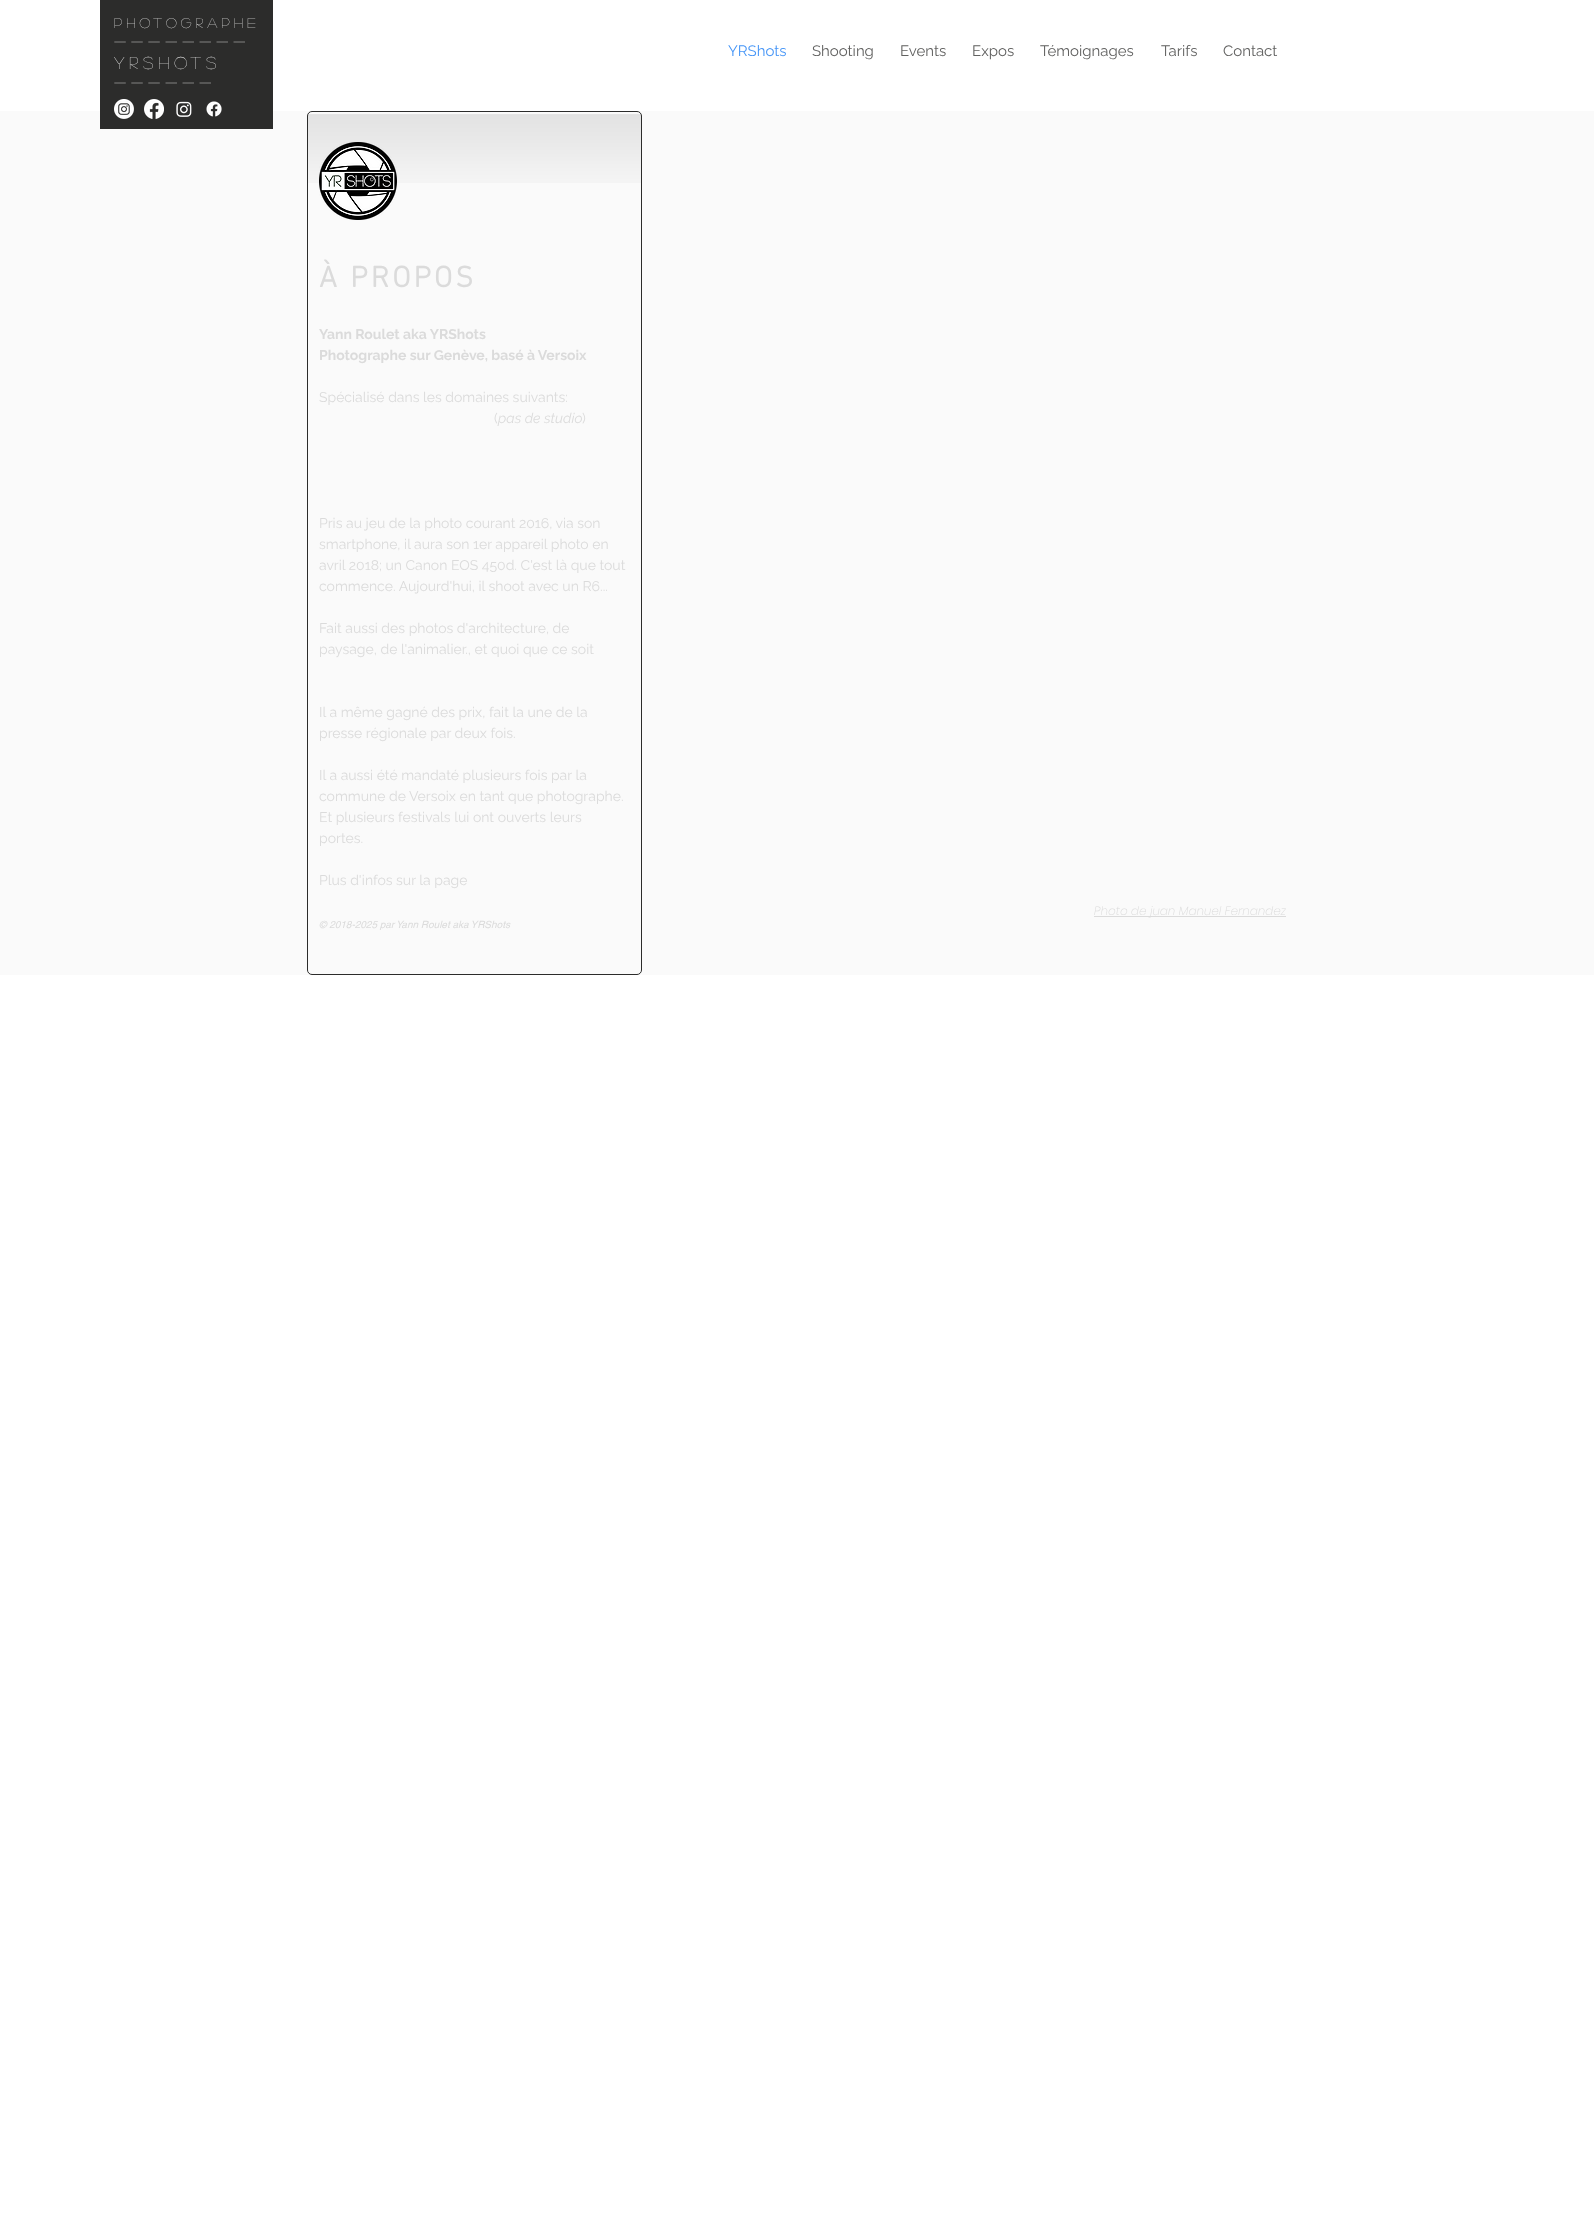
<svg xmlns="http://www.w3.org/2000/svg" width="1594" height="2239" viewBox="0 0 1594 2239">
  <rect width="100%" height="100%" fill="#fff"/>
  <path d="M0 111h1594v864H0z" fill="#fafafa"/>
  <path d="M100 0h173v129H100z" fill="#2c2c2b"/>
  <image x="114" y="99" width="20" height="20" href="img/1.png"/>
  <image x="144" y="99" width="20" height="20" href="img/2.png"/>
  <image x="176" y="101" width="16" height="16" href="img/3.png"/>
  <image x="206" y="101" width="16" height="16" href="img/4.png"/>
  <image x="307" y="114" width="335" height="69" href="img/5.png"/>
  <rect x="307.5" y="111.5" width="334" height="863" rx="4.5" fill="none" stroke="#2c2c2b"/>
  <image x="319" y="142" width="78" height="78" href="img/6.png"/>
  <path d="M1094 916h192v1H1094z" fill="#dbdbdb"/>
  <text x="114" y="28" font-family="'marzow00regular'" font-size="14" letter-spacing="4.25" fill="#fff">Photographe</text>
  <g font-family="'marzow00regular'" font-size="17" letter-spacing="5" fill="#fff">
    <text x="114" y="48">--------</text>
    <text x="114" y="69">YRShots</text>
    <text x="114" y="89">------</text>
  </g>
  <text x="728" y="56" font-family="Raleway" font-size="15" fill="#4595f7">YRShots</text>
  <g font-family="Raleway" font-size="15" fill="#616160">
    <text x="812" y="56">Shooting</text>
    <text x="900" y="56">Events</text>
    <text x="972" y="56">Expos</text>
    <text x="1040" y="56">Témoignages</text>
    <text x="1161" y="56">Tarifs</text>
    <text x="1223" y="56">Contact</text>
  </g>
  <text x="319" y="287" font-family="'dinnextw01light'" font-size="30" font-weight="bold" letter-spacing="3" fill="#dbdbdb">À PROPOS</text>
  <g font-family="Raleway" font-size="14" font-weight="bold" fill="#dbdbdb">
    <text x="319" y="339">Yann Roulet aka YRShots</text>
    <text x="319" y="360">Photographe sur Genève, basé à Versoix</text>
  </g>
  <g font-family="Raleway" font-size="14" fill="#dbdbdb">
    <text x="319" y="402">Spécialisé dans les domaines suivants:</text>
    <text x="494" y="423">(</text>
  </g>
  <text x="498" y="423" font-family="Raleway" font-size="14" font-style="italic" fill="#dbdbdb">pas de studio</text>
  <g font-family="Raleway" font-size="14" fill="#dbdbdb">
    <text x="582" y="423">)</text>
    <text x="319" y="528">Pris au jeu de la photo courant 2016, via son</text>
    <text x="319" y="549">smartphone, il aura son 1er appareil photo en</text>
    <text x="319" y="570">avril 2018; un Canon EOS 450d. C'est là que tout</text>
    <text x="319" y="591">commence. Aujourd'hui, il shoot avec un R6...</text>
    <text x="319" y="633">Fait aussi des photos d'architecture, de</text>
    <text x="319" y="654">paysage, de l'animalier., et quoi que ce soit</text>
    <text x="319" y="717">Il a même gagné des prix, fait la une de la</text>
    <text x="319" y="738">presse régionale par deux fois.</text>
    <text x="319" y="780">Il a aussi été mandaté plusieurs fois par la</text>
    <text x="319" y="801">commune de Versoix en tant que photographe.</text>
    <text x="319" y="822">Et plusieurs festivals lui ont ouverts leurs</text>
    <text x="319" y="843">portes.</text>
    <text x="319" y="885">Plus d'infos sur la page</text>
  </g>
  <text x="319" y="928" font-family="helvetica" font-size="10" font-style="italic" fill="#dbdbdb">© 2018-2025 par Yann Roulet aka YRShots</text>
  <text x="1094" y="915" font-family="Poppins" font-size="12" font-weight="200" font-style="italic" fill="#dbdbdb">Photo de juan Manuel Fernandez</text>
</svg>
